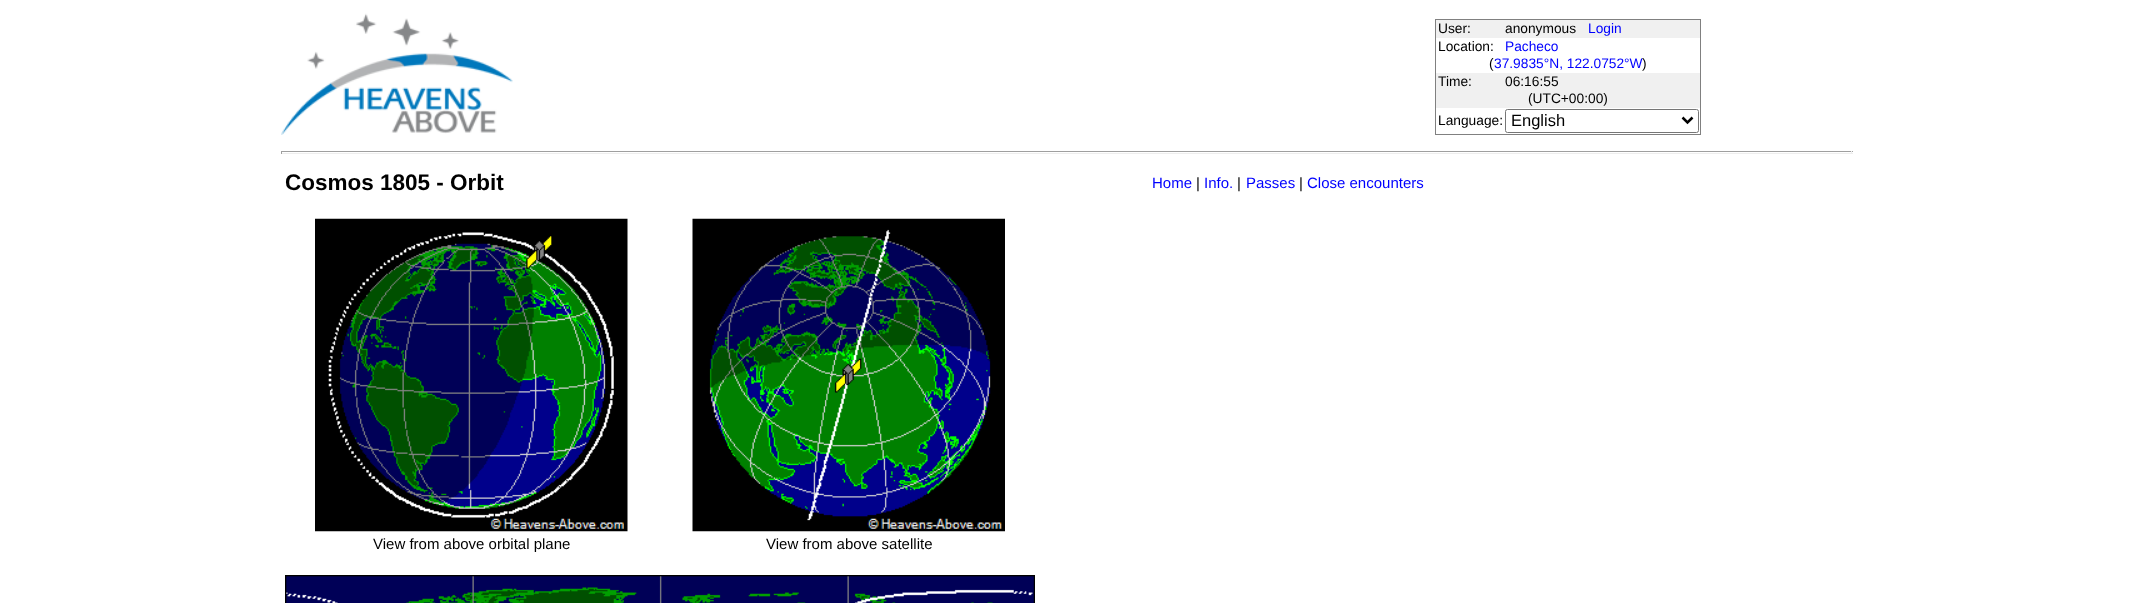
<svg xmlns="http://www.w3.org/2000/svg" width="2133" height="603" viewBox="0 0 2133 603">
  <rect width="100%" height="100%" fill="#fff"/>
  <image x="281" y="13" width="232" height="122" href="img/1.png"/>
  <path d="M1436 20h264v88H1436z" fill="#f0f0f0"/>
  <path d="M1435 19h266v1H1435z" fill="#808080"/>
  <path d="M1700 19h1v116H1700z" fill="#808080"/>
  <path d="M1435 134h266v1H1435z" fill="#808080"/>
  <path d="M1435 19h1v116H1435z" fill="#808080"/>
  <path d="M1436 38h264v35H1436z" fill="#fff"/>
  <rect x="1505.5" y="109.5" width="193" height="23" rx="2" fill="none" stroke="#767676"/>
  <path d="M1682.5 117.5L1687.5 122.5L1692.5 117.5" fill="none" stroke="#000" stroke-width="2.5"/>
  <path d="M281 151h1572v1H281z" fill="#9f9f9f"/>
  <path d="M1851 151h1v3H1851z" fill="#eee"/>
  <path d="M281 153h1572v1H281z" fill="#eee"/>
  <path d="M281 151h1v3H281z" fill="#9f9f9f"/>
  <image x="315" y="218" width="313" height="314" href="img/2.png"/>
  <image x="692" y="218" width="313" height="314" href="img/3.png"/>
  <image x="285" y="575" width="750" height="28" href="img/4.png"/>
  <g font-family="Liberation Sans" font-size="13.75" fill="#000">
    <text x="1438" y="33">User:</text>
    <text x="1505" y="33">anonymous</text>
  </g>
  <text x="1588" y="33" font-family="Liberation Sans" font-size="13.75" fill="#00f">Login</text>
  <text x="1438" y="51" font-family="Liberation Sans" font-size="13.75" fill="#000">Location:</text>
  <text x="1505" y="51" font-family="Liberation Sans" font-size="13.75" fill="#00f">Pacheco</text>
  <text x="1489" y="68" font-family="Liberation Sans" font-size="13.75" fill="#000">(</text>
  <text x="1494" y="68" font-family="Liberation Sans" font-size="13.75" fill="#00f">37.9835°N, 122.0752°W</text>
  <g font-family="Liberation Sans" font-size="13.75" fill="#000">
    <text x="1642" y="68">)</text>
    <text x="1438" y="86">Time:</text>
    <text x="1505" y="86">06:16:55</text>
    <text x="1528" y="103">(UTC+00:00)</text>
    <text x="1438" y="125">Language:</text>
  </g>
  <text x="1511" y="126" font-family="Liberation Sans" font-size="16.5" fill="#000">English</text>
  <text x="285" y="190" font-family="Liberation Sans" font-size="22.5" font-weight="bold" fill="#000">Cosmos 1805 - Orbit</text>
  <text x="1152" y="188" font-family="Liberation Sans" font-size="15" fill="#00f">Home</text>
  <text x="1196" y="188" font-family="Liberation Sans" font-size="15" fill="#000">|</text>
  <text x="1204" y="188" font-family="Liberation Sans" font-size="15" fill="#00f">Info.</text>
  <text x="1237" y="188" font-family="Liberation Sans" font-size="15" fill="#000">|</text>
  <text x="1246" y="188" font-family="Liberation Sans" font-size="15" fill="#00f">Passes</text>
  <text x="1299" y="188" font-family="Liberation Sans" font-size="15" fill="#000">|</text>
  <text x="1307" y="188" font-family="Liberation Sans" font-size="15" fill="#00f">Close encounters</text>
  <g font-family="Liberation Sans" font-size="15" fill="#000">
    <text x="373" y="549">View from above orbital plane</text>
    <text x="766" y="549">View from above satellite</text>
  </g>
</svg>
